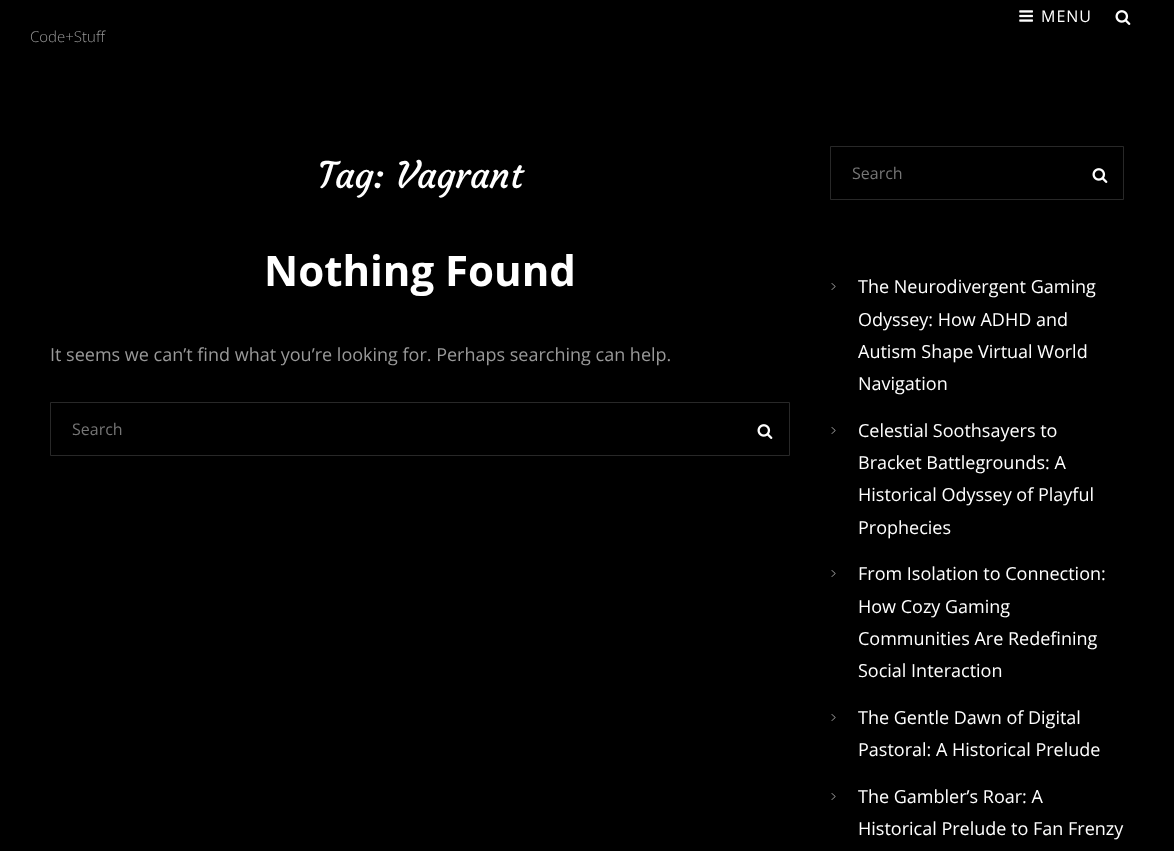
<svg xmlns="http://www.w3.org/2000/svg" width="1174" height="851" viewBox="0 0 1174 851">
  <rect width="100%" height="100%" fill="#000"/>
  <image x="1019" y="10" width="14" height="12" href="img/1.png"/>
  <image x="1115" y="10" width="16" height="15" href="img/2.png"/>
  <path d="M50.5 402.5h739v53H50.5z" fill="none" stroke="#282828"/>
  <image x="757" y="424" width="16" height="15" href="img/2.png"/>
  <path d="M830.5 146.5h293v53H830.5z" fill="none" stroke="#282828"/>
  <image x="1092" y="168" width="16" height="15" href="img/2.png"/>
  <image x="831" y="283" width="5" height="7" href="img/3.png"/>
  <image x="831" y="427" width="5" height="7" href="img/3.png"/>
  <image x="831" y="570" width="5" height="7" href="img/3.png"/>
  <image x="831" y="714" width="5" height="7" href="img/3.png"/>
  <image x="831" y="793" width="5" height="7" href="img/3.png"/>
  <text x="1041" y="22" font-family="Open Sans" font-size="16" letter-spacing="1" fill="#fff">MENU</text>
  <text x="30" y="42" font-family="Open Sans" font-size="15" font-weight="300" fill="#999">Code+Stuff</text>
  <text x="318" y="188" font-family="Courgette" font-size="36" fill="#fff">Tag: Vagrant</text>
  <text x="264" y="286" font-family="Open Sans" font-size="42" font-weight="bold" fill="#fff">Nothing Found</text>
  <text x="50" y="361" font-family="Open Sans" font-size="18" fill="#999">It seems we can’t find what you’re looking for. Perhaps searching can help.</text>
  <g font-family="Open Sans" font-size="16" fill="#757575">
    <text x="72" y="435">Search</text>
    <text x="852" y="179">Search</text>
  </g>
  <g font-family="Open Sans" font-size="18" fill="#fff">
    <text x="858" y="293">The Neurodivergent Gaming</text>
    <text x="858" y="326">Odyssey: How ADHD and</text>
    <text x="858" y="358">Autism Shape Virtual World</text>
    <text x="858" y="390">Navigation</text>
    <text x="858" y="437">Celestial Soothsayers to</text>
    <text x="858" y="469">Bracket Battlegrounds: A</text>
    <text x="858" y="501">Historical Odyssey of Playful</text>
    <text x="858" y="534">Prophecies</text>
    <text x="858" y="580">From Isolation to Connection:</text>
    <text x="858" y="613">How Cozy Gaming</text>
    <text x="858" y="645">Communities Are Redefining</text>
    <text x="858" y="677">Social Interaction</text>
    <text x="858" y="724">The Gentle Dawn of Digital</text>
    <text x="858" y="756">Pastoral: A Historical Prelude</text>
    <text x="858" y="803">The Gambler’s Roar: A</text>
    <text x="858" y="835">Historical Prelude to Fan Frenzy</text>
  </g>
</svg>
